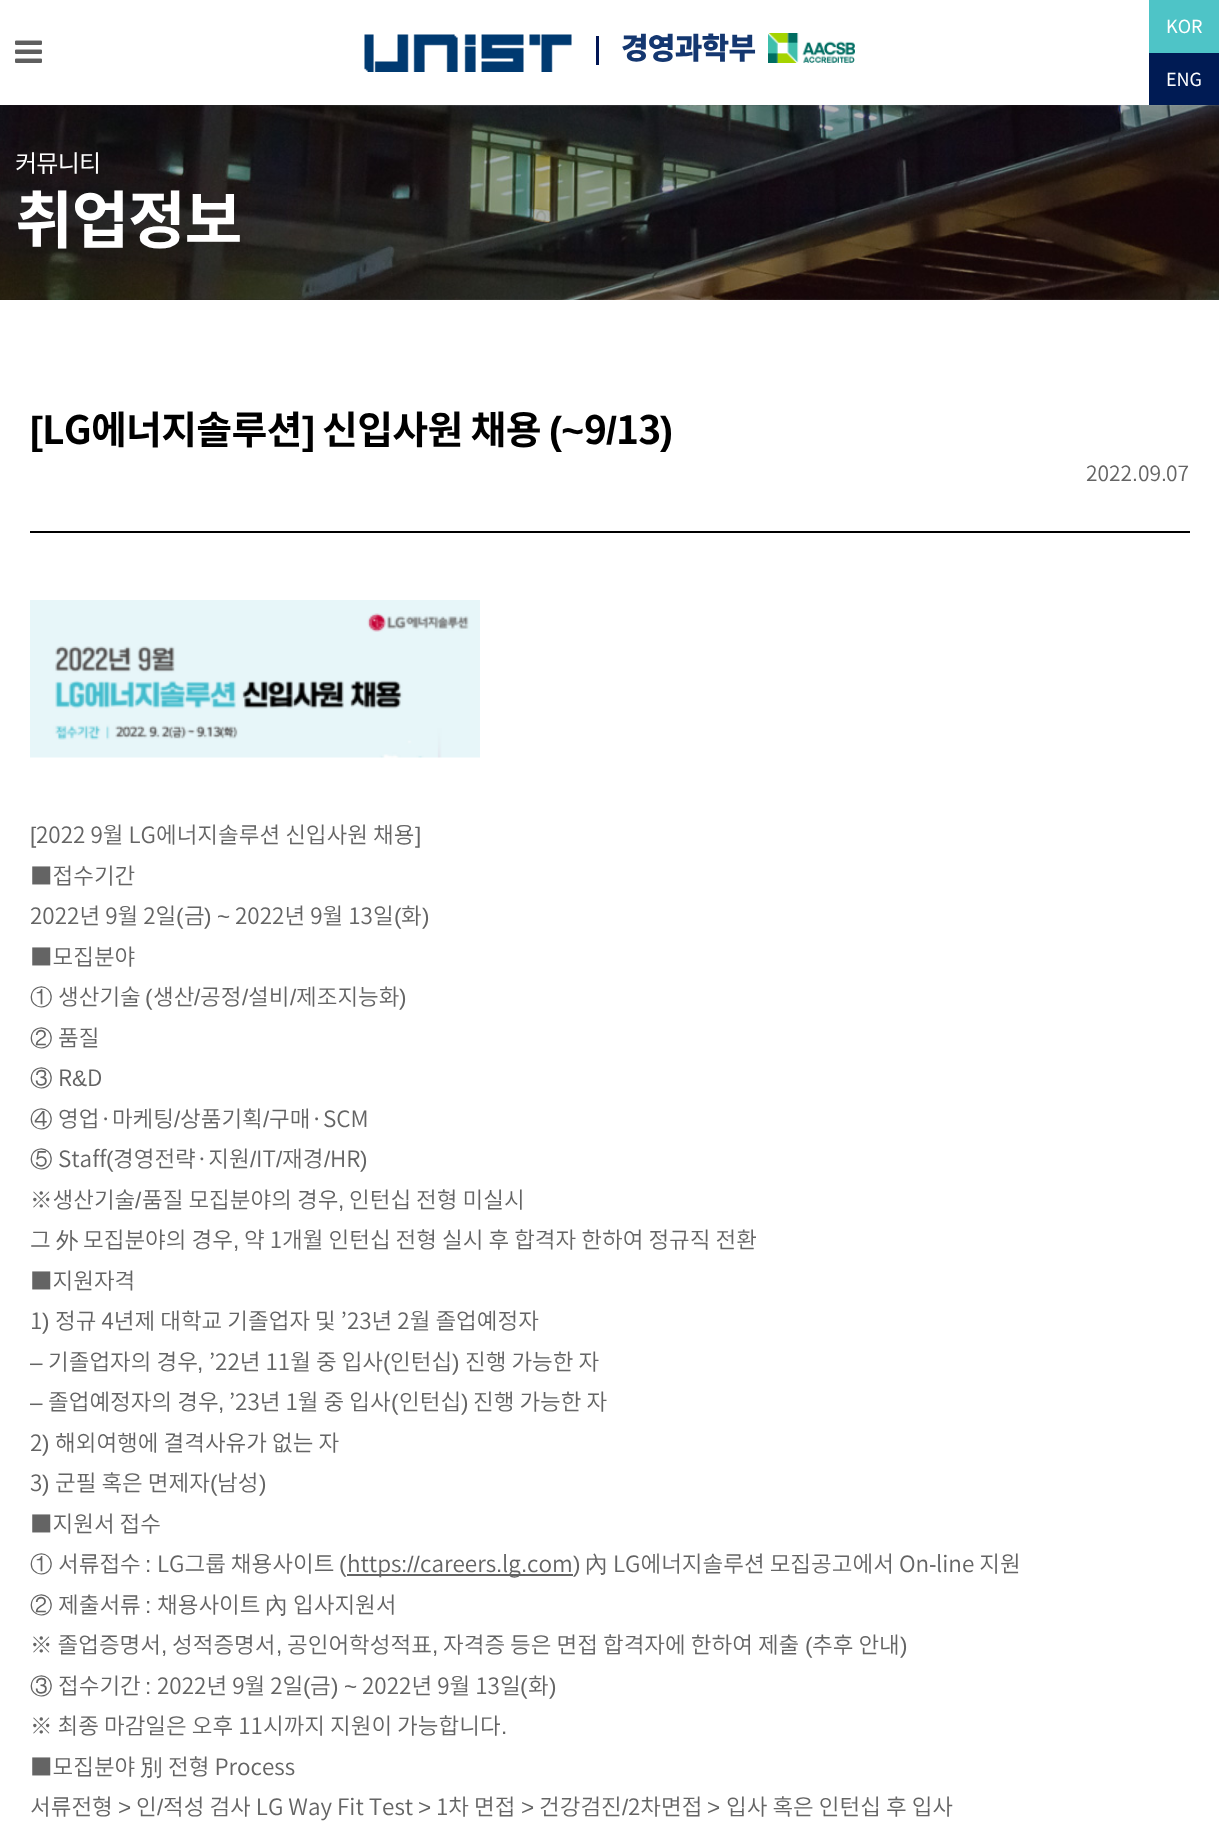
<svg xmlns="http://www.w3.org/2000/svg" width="1219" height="1823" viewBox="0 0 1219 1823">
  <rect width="100%" height="100%" fill="#fff"/>
  <image x="15" y="40" width="27" height="23" href="img/1.png"/>
  <image x="364" y="34" width="208" height="38" href="img/2.png"/>
  <path d="M596 36h3v29H596z" fill="#011655"/>
  <image x="768" y="33" width="87" height="30" href="img/3.png"/>
  <path d="M1149 0h70v53H1149z" fill="#4ec4c7"/>
  <path d="M1149 53h70v52H1149z" fill="#001b54"/>
  <image x="0" y="105" width="1219" height="195" href="img/4.png"/>
  <path d="M30 531h1160v2H30z" fill="#000"/>
  <image x="30" y="600" width="450" height="158" href="img/5.png"/>
  <path d="M347 1574h226v2H347z" fill="#646464"/>
  <text x="621" y="59" font-family="Noto Sans CJK KR" font-size="30" font-weight="900" letter-spacing="-0.75" fill="#143770">경영과학부</text>
  <g font-family="Noto Sans CJK KR" font-size="18" fill="#fff">
    <text x="1166" y="33">KOR</text>
    <text x="1166" y="86">ENG</text>
  </g>
  <text x="15" y="172" font-family="Noto Sans CJK KR" font-size="24" letter-spacing="-0.75" fill="#fff">커뮤니티</text>
  <text x="15" y="243" font-family="Noto Sans CJK KR" font-size="63" font-weight="bold" letter-spacing="-1.5" fill="#fff">취업정보</text>
  <text x="30" y="444" font-family="Liberation Sans" font-size="39" font-weight="bold" letter-spacing="-0.75" fill="#000">[</text>
  <text x="42" y="444" font-family="Noto Sans CJK KR" font-size="39" font-weight="bold" letter-spacing="-0.75" fill="#000">LG에너지솔루션</text>
  <text x="302" y="444" font-family="Liberation Sans" font-size="39" font-weight="bold" letter-spacing="-0.75" fill="#000">]</text>
  <text x="322" y="444" font-family="Noto Sans CJK KR" font-size="39" font-weight="bold" letter-spacing="-0.75" fill="#000">신입사원 채용</text>
  <text x="549" y="444" font-family="Liberation Sans" font-size="39" font-weight="bold" letter-spacing="-0.75" fill="#000">(~</text>
  <text x="584" y="444" font-family="Noto Sans CJK KR" font-size="39" font-weight="bold" letter-spacing="-0.75" fill="#000">9</text>
  <text x="606" y="444" font-family="Liberation Sans" font-size="39" font-weight="bold" letter-spacing="-0.75" fill="#000">/</text>
  <text x="616" y="444" font-family="Noto Sans CJK KR" font-size="39" font-weight="bold" letter-spacing="-0.75" fill="#000">13</text>
  <text x="660" y="444" font-family="Liberation Sans" font-size="39" font-weight="bold" letter-spacing="-0.75" fill="#000">)</text>
  <text x="1086" y="481" font-family="Noto Sans CJK KR" font-size="21" font-weight="300" fill="#646464">2022</text>
  <text x="1132" y="481" font-family="Liberation Sans" font-size="21" fill="#646464">.</text>
  <text x="1138" y="481" font-family="Noto Sans CJK KR" font-size="21" font-weight="300" fill="#646464">09</text>
  <text x="1161" y="481" font-family="Liberation Sans" font-size="21" fill="#646464">.</text>
  <text x="1166" y="481" font-family="Noto Sans CJK KR" font-size="21" font-weight="300" fill="#646464">07</text>
  <text x="30" y="843" font-family="Liberation Sans" font-size="22.5" fill="#646464">[</text>
  <text x="36" y="843" font-family="Noto Sans CJK KR" font-size="22.5" font-weight="300" fill="#646464">2022 9월 LG에너지솔루션 신입사원 채용</text>
  <text x="415" y="843" font-family="Liberation Sans" font-size="22.5" fill="#646464">]</text>
  <g font-family="Noto Sans CJK KR" font-size="22.5" font-weight="300" fill="#646464">
    <text x="30" y="884">■접수기간</text>
    <text x="30" y="924">2022년 9월 2일</text>
  </g>
  <text x="176" y="924" font-family="Liberation Sans" font-size="22.5" fill="#646464">(</text>
  <text x="184" y="924" font-family="Noto Sans CJK KR" font-size="22.5" font-weight="300" fill="#646464">금</text>
  <g font-family="Liberation Sans" font-size="22.5" fill="#646464">
    <text x="204" y="924">)</text>
    <text x="217" y="924">~</text>
  </g>
  <text x="235" y="924" font-family="Noto Sans CJK KR" font-size="22.5" font-weight="300" fill="#646464">2022년 9월 13일</text>
  <text x="394" y="924" font-family="Liberation Sans" font-size="22.5" fill="#646464">(</text>
  <text x="401" y="924" font-family="Noto Sans CJK KR" font-size="22.5" font-weight="300" fill="#646464">화</text>
  <text x="422" y="924" font-family="Liberation Sans" font-size="22.5" fill="#646464">)</text>
  <text x="30" y="965" font-family="Noto Sans CJK KR" font-size="22.5" font-weight="300" fill="#646464">■모집분야</text>
  <text x="30" y="1005" font-family="WenQuanYi Zen Hei" font-size="22.5" font-weight="500" fill="#646464">①</text>
  <text x="58" y="1005" font-family="Noto Sans CJK KR" font-size="22.5" font-weight="300" fill="#646464">생산기술</text>
  <text x="145" y="1005" font-family="Liberation Sans" font-size="22.5" fill="#646464">(</text>
  <text x="153" y="1005" font-family="Noto Sans CJK KR" font-size="22.5" font-weight="300" fill="#646464">생산</text>
  <text x="194" y="1005" font-family="Liberation Sans" font-size="22.5" fill="#646464">/</text>
  <text x="200" y="1005" font-family="Noto Sans CJK KR" font-size="22.5" font-weight="300" fill="#646464">공정</text>
  <text x="242" y="1005" font-family="Liberation Sans" font-size="22.5" fill="#646464">/</text>
  <text x="248" y="1005" font-family="Noto Sans CJK KR" font-size="22.5" font-weight="300" fill="#646464">설비</text>
  <text x="290" y="1005" font-family="Liberation Sans" font-size="22.5" fill="#646464">/</text>
  <text x="296" y="1005" font-family="Noto Sans CJK KR" font-size="22.5" font-weight="300" fill="#646464">제조지능화</text>
  <text x="399" y="1005" font-family="Liberation Sans" font-size="22.5" fill="#646464">)</text>
  <text x="30" y="1046" font-family="WenQuanYi Zen Hei" font-size="22.5" font-weight="500" fill="#646464">②</text>
  <text x="58" y="1046" font-family="Noto Sans CJK KR" font-size="22.5" font-weight="300" fill="#646464">품질</text>
  <text x="30" y="1086" font-family="WenQuanYi Zen Hei" font-size="22.5" font-weight="500" fill="#646464">③</text>
  <text x="58" y="1086" font-family="Noto Sans CJK KR" font-size="22.5" font-weight="300" fill="#646464">R</text>
  <text x="72" y="1086" font-family="Liberation Sans" font-size="22.5" fill="#646464">&amp;</text>
  <text x="87" y="1086" font-family="Noto Sans CJK KR" font-size="22.5" font-weight="300" fill="#646464">D</text>
  <text x="30" y="1127" font-family="WenQuanYi Zen Hei" font-size="22.5" font-weight="500" fill="#646464">④</text>
  <text x="58" y="1127" font-family="Noto Sans CJK KR" font-size="22.5" font-weight="300" fill="#646464">영업·마케팅</text>
  <text x="174" y="1127" font-family="Liberation Sans" font-size="22.5" fill="#646464">/</text>
  <text x="180" y="1127" font-family="Noto Sans CJK KR" font-size="22.5" font-weight="300" fill="#646464">상품기획</text>
  <text x="263" y="1127" font-family="Liberation Sans" font-size="22.5" fill="#646464">/</text>
  <text x="269" y="1127" font-family="Noto Sans CJK KR" font-size="22.5" font-weight="300" fill="#646464">구매·SCM</text>
  <text x="30" y="1167" font-family="WenQuanYi Zen Hei" font-size="22.5" font-weight="500" fill="#646464">⑤</text>
  <text x="58" y="1167" font-family="Noto Sans CJK KR" font-size="22.5" font-weight="300" fill="#646464">Staff</text>
  <text x="106" y="1167" font-family="Liberation Sans" font-size="22.5" fill="#646464">(</text>
  <text x="113" y="1167" font-family="Noto Sans CJK KR" font-size="22.5" font-weight="300" fill="#646464">경영전략·지원</text>
  <text x="250" y="1167" font-family="Liberation Sans" font-size="22.5" fill="#646464">/</text>
  <text x="256" y="1167" font-family="Noto Sans CJK KR" font-size="22.5" font-weight="300" fill="#646464">IT</text>
  <text x="276" y="1167" font-family="Liberation Sans" font-size="22.5" fill="#646464">/</text>
  <text x="282" y="1167" font-family="Noto Sans CJK KR" font-size="22.5" font-weight="300" fill="#646464">재경</text>
  <text x="324" y="1167" font-family="Liberation Sans" font-size="22.5" fill="#646464">/</text>
  <text x="330" y="1167" font-family="Noto Sans CJK KR" font-size="22.5" font-weight="300" fill="#646464">HR</text>
  <text x="360" y="1167" font-family="Liberation Sans" font-size="22.5" fill="#646464">)</text>
  <text x="30" y="1208" font-family="Noto Sans CJK KR" font-size="22.5" font-weight="300" fill="#646464">※생산기술</text>
  <text x="135" y="1208" font-family="Liberation Sans" font-size="22.5" fill="#646464">/</text>
  <text x="142" y="1208" font-family="Noto Sans CJK KR" font-size="22.5" font-weight="300" fill="#646464">품질 모집분야의 경우</text>
  <text x="338" y="1208" font-family="Liberation Sans" font-size="22.5" fill="#646464">,</text>
  <g font-family="Noto Sans CJK KR" font-size="22.5" font-weight="300" fill="#646464">
    <text x="349" y="1208">인턴십 전형 미실시</text>
    <text x="30" y="1248">그</text>
  </g>
  <text x="56" y="1248" font-family="WenQuanYi Zen Hei" font-size="22.5" font-weight="500" fill="#646464">外</text>
  <g font-family="Noto Sans CJK KR" font-size="22.5" font-weight="300" fill="#646464">
    <text x="83" y="1248">모집분야의 경우</text>
    <text x="244" y="1248">약 1개월 인턴십 전형 실시 후 합격자 한하여 정규직 전환</text>
  </g>
  <text x="233" y="1248" font-family="Liberation Sans" font-size="22.5" fill="#646464">,</text>
  <g font-family="Noto Sans CJK KR" font-size="22.5" font-weight="300" fill="#646464">
    <text x="30" y="1289">■지원자격</text>
    <text x="30" y="1329">1</text>
  </g>
  <text x="42" y="1329" font-family="Liberation Sans" font-size="22.5" fill="#646464">)</text>
  <text x="55" y="1329" font-family="Noto Sans CJK KR" font-size="22.5" font-weight="300" fill="#646464">정규 4년제 대학교 기졸업자 및 ’23년 2월 졸업예정자</text>
  <text x="30" y="1370" font-family="Liberation Sans" font-size="22.5" fill="#646464">–</text>
  <g font-family="Noto Sans CJK KR" font-size="22.5" font-weight="300" fill="#646464">
    <text x="48" y="1370">기졸업자의 경우</text>
    <text x="209" y="1370">’22년 11월 중 입사</text>
  </g>
  <text x="383" y="1370" font-family="Liberation Sans" font-size="22.5" fill="#646464">(</text>
  <text x="390" y="1370" font-family="Noto Sans CJK KR" font-size="22.5" font-weight="300" fill="#646464">인턴십</text>
  <text x="452" y="1370" font-family="Liberation Sans" font-size="22.5" fill="#646464">)</text>
  <text x="465" y="1370" font-family="Noto Sans CJK KR" font-size="22.5" font-weight="300" fill="#646464">진행 가능한 자</text>
  <g font-family="Liberation Sans" font-size="22.5" fill="#646464">
    <text x="197" y="1370">,</text>
    <text x="30" y="1410">–</text>
  </g>
  <g font-family="Noto Sans CJK KR" font-size="22.5" font-weight="300" fill="#646464">
    <text x="48" y="1410">졸업예정자의 경우</text>
    <text x="229" y="1410">’23년 1월 중 입사</text>
  </g>
  <text x="391" y="1410" font-family="Liberation Sans" font-size="22.5" fill="#646464">(</text>
  <text x="399" y="1410" font-family="Noto Sans CJK KR" font-size="22.5" font-weight="300" fill="#646464">인턴십</text>
  <text x="461" y="1410" font-family="Liberation Sans" font-size="22.5" fill="#646464">)</text>
  <text x="473" y="1410" font-family="Noto Sans CJK KR" font-size="22.5" font-weight="300" fill="#646464">진행 가능한 자</text>
  <text x="218" y="1410" font-family="Liberation Sans" font-size="22.5" fill="#646464">,</text>
  <text x="30" y="1451" font-family="Noto Sans CJK KR" font-size="22.5" font-weight="300" fill="#646464">2</text>
  <text x="42" y="1451" font-family="Liberation Sans" font-size="22.5" fill="#646464">)</text>
  <g font-family="Noto Sans CJK KR" font-size="22.5" font-weight="300" fill="#646464">
    <text x="55" y="1451">해외여행에 결격사유가 없는 자</text>
    <text x="30" y="1491">3</text>
  </g>
  <text x="42" y="1491" font-family="Liberation Sans" font-size="22.5" fill="#646464">)</text>
  <text x="55" y="1491" font-family="Noto Sans CJK KR" font-size="22.5" font-weight="300" fill="#646464">군필 혹은 면제자</text>
  <text x="210" y="1491" font-family="Liberation Sans" font-size="22.5" fill="#646464">(</text>
  <text x="217" y="1491" font-family="Noto Sans CJK KR" font-size="22.5" font-weight="300" fill="#646464">남성</text>
  <text x="259" y="1491" font-family="Liberation Sans" font-size="22.5" fill="#646464">)</text>
  <text x="30" y="1532" font-family="Noto Sans CJK KR" font-size="22.5" font-weight="300" fill="#646464">■지원서 접수</text>
  <text x="30" y="1572" font-family="WenQuanYi Zen Hei" font-size="22.5" font-weight="500" fill="#646464">①</text>
  <text x="58" y="1572" font-family="Noto Sans CJK KR" font-size="22.5" font-weight="300" fill="#646464">서류접수</text>
  <text x="145" y="1572" font-family="Liberation Sans" font-size="22.5" fill="#646464">:</text>
  <text x="157" y="1572" font-family="Noto Sans CJK KR" font-size="22.5" font-weight="300" fill="#646464">LG그룹 채용사이트</text>
  <text x="339" y="1572" font-family="Liberation Sans" font-size="22.5" fill="#646464">(</text>
  <text x="347" y="1572" font-family="Noto Sans CJK KR" font-size="22.5" font-weight="300" fill="#646464">https</text>
  <text x="401" y="1572" font-family="Liberation Sans" font-size="22.5" fill="#646464">://</text>
  <g font-family="Noto Sans CJK KR" font-size="22.5" font-weight="300" fill="#646464">
    <text x="420" y="1572">careers</text>
    <text x="502" y="1572">lg</text>
    <text x="527" y="1572">com</text>
  </g>
  <text x="573" y="1572" font-family="Liberation Sans" font-size="22.5" fill="#646464">)</text>
  <text x="585" y="1572" font-family="WenQuanYi Zen Hei" font-size="22.5" font-weight="500" fill="#646464">內</text>
  <text x="613" y="1572" font-family="Noto Sans CJK KR" font-size="22.5" font-weight="300" fill="#646464">LG에너지솔루션 모집공고에서 On</text>
  <text x="929" y="1572" font-family="Liberation Sans" font-size="22.5" fill="#646464">-</text>
  <text x="936" y="1572" font-family="Noto Sans CJK KR" font-size="22.5" font-weight="300" fill="#646464">line 지원</text>
  <g font-family="Liberation Sans" font-size="22.5" fill="#646464">
    <text x="496" y="1572">.</text>
    <text x="521" y="1572">.</text>
  </g>
  <text x="30" y="1613" font-family="WenQuanYi Zen Hei" font-size="22.5" font-weight="500" fill="#646464">②</text>
  <text x="58" y="1613" font-family="Noto Sans CJK KR" font-size="22.5" font-weight="300" fill="#646464">제출서류</text>
  <text x="145" y="1613" font-family="Liberation Sans" font-size="22.5" fill="#646464">:</text>
  <text x="157" y="1613" font-family="Noto Sans CJK KR" font-size="22.5" font-weight="300" fill="#646464">채용사이트</text>
  <text x="265" y="1613" font-family="WenQuanYi Zen Hei" font-size="22.5" font-weight="500" fill="#646464">內</text>
  <g font-family="Noto Sans CJK KR" font-size="22.5" font-weight="300" fill="#646464">
    <text x="293" y="1613">입사지원서</text>
    <text x="30" y="1653">※ 졸업증명서</text>
  </g>
  <text x="161" y="1653" font-family="Liberation Sans" font-size="22.5" fill="#646464">,</text>
  <text x="172" y="1653" font-family="Noto Sans CJK KR" font-size="22.5" font-weight="300" fill="#646464">성적증명서</text>
  <text x="276" y="1653" font-family="Liberation Sans" font-size="22.5" fill="#646464">,</text>
  <text x="287" y="1653" font-family="Noto Sans CJK KR" font-size="22.5" font-weight="300" fill="#646464">공인어학성적표</text>
  <text x="432" y="1653" font-family="Liberation Sans" font-size="22.5" fill="#646464">,</text>
  <text x="443" y="1653" font-family="Noto Sans CJK KR" font-size="22.5" font-weight="300" fill="#646464">자격증 등은 면접 합격자에 한하여 제출</text>
  <text x="805" y="1653" font-family="Liberation Sans" font-size="22.5" fill="#646464">(</text>
  <text x="812" y="1653" font-family="Noto Sans CJK KR" font-size="22.5" font-weight="300" fill="#646464">추후 안내</text>
  <text x="900" y="1653" font-family="Liberation Sans" font-size="22.5" fill="#646464">)</text>
  <text x="30" y="1694" font-family="WenQuanYi Zen Hei" font-size="22.5" font-weight="500" fill="#646464">③</text>
  <text x="58" y="1694" font-family="Noto Sans CJK KR" font-size="22.5" font-weight="300" fill="#646464">접수기간</text>
  <text x="145" y="1694" font-family="Liberation Sans" font-size="22.5" fill="#646464">:</text>
  <text x="157" y="1694" font-family="Noto Sans CJK KR" font-size="22.5" font-weight="300" fill="#646464">2022년 9월 2일</text>
  <text x="303" y="1694" font-family="Liberation Sans" font-size="22.5" fill="#646464">(</text>
  <text x="310" y="1694" font-family="Noto Sans CJK KR" font-size="22.5" font-weight="300" fill="#646464">금</text>
  <g font-family="Liberation Sans" font-size="22.5" fill="#646464">
    <text x="331" y="1694">)</text>
    <text x="344" y="1694">~</text>
  </g>
  <text x="362" y="1694" font-family="Noto Sans CJK KR" font-size="22.5" font-weight="300" fill="#646464">2022년 9월 13일</text>
  <text x="520" y="1694" font-family="Liberation Sans" font-size="22.5" fill="#646464">(</text>
  <text x="528" y="1694" font-family="Noto Sans CJK KR" font-size="22.5" font-weight="300" fill="#646464">화</text>
  <text x="549" y="1694" font-family="Liberation Sans" font-size="22.5" fill="#646464">)</text>
  <text x="30" y="1734" font-family="Noto Sans CJK KR" font-size="22.5" font-weight="300" fill="#646464">※ 최종 마감일은 오후 11시까지 지원이 가능합니다</text>
  <text x="501" y="1734" font-family="Liberation Sans" font-size="22.5" fill="#646464">.</text>
  <text x="30" y="1775" font-family="Noto Sans CJK KR" font-size="22.5" font-weight="300" fill="#646464">■모집분야</text>
  <text x="140" y="1775" font-family="WenQuanYi Zen Hei" font-size="22.5" font-weight="500" fill="#646464">別</text>
  <g font-family="Noto Sans CJK KR" font-size="22.5" font-weight="300" fill="#646464">
    <text x="168" y="1775">전형 Process</text>
    <text x="30" y="1815">서류전형</text>
  </g>
  <text x="118" y="1815" font-family="Liberation Sans" font-size="22.5" fill="#646464">&gt;</text>
  <text x="136" y="1815" font-family="Noto Sans CJK KR" font-size="22.5" font-weight="300" fill="#646464">인</text>
  <text x="157" y="1815" font-family="Liberation Sans" font-size="22.5" fill="#646464">/</text>
  <text x="163" y="1815" font-family="Noto Sans CJK KR" font-size="22.5" font-weight="300" fill="#646464">적성 검사 LG Way Fit Test</text>
  <text x="418" y="1815" font-family="Liberation Sans" font-size="22.5" fill="#646464">&gt;</text>
  <text x="436" y="1815" font-family="Noto Sans CJK KR" font-size="22.5" font-weight="300" fill="#646464">1차 면접</text>
  <text x="521" y="1815" font-family="Liberation Sans" font-size="22.5" fill="#646464">&gt;</text>
  <text x="539" y="1815" font-family="Noto Sans CJK KR" font-size="22.5" font-weight="300" fill="#646464">건강검진</text>
  <text x="622" y="1815" font-family="Liberation Sans" font-size="22.5" fill="#646464">/</text>
  <text x="628" y="1815" font-family="Noto Sans CJK KR" font-size="22.5" font-weight="300" fill="#646464">2차면접</text>
  <text x="707" y="1815" font-family="Liberation Sans" font-size="22.5" fill="#646464">&gt;</text>
  <text x="726" y="1815" font-family="Noto Sans CJK KR" font-size="22.5" font-weight="300" fill="#646464">입사 혹은 인턴십 후 입사</text>
</svg>
